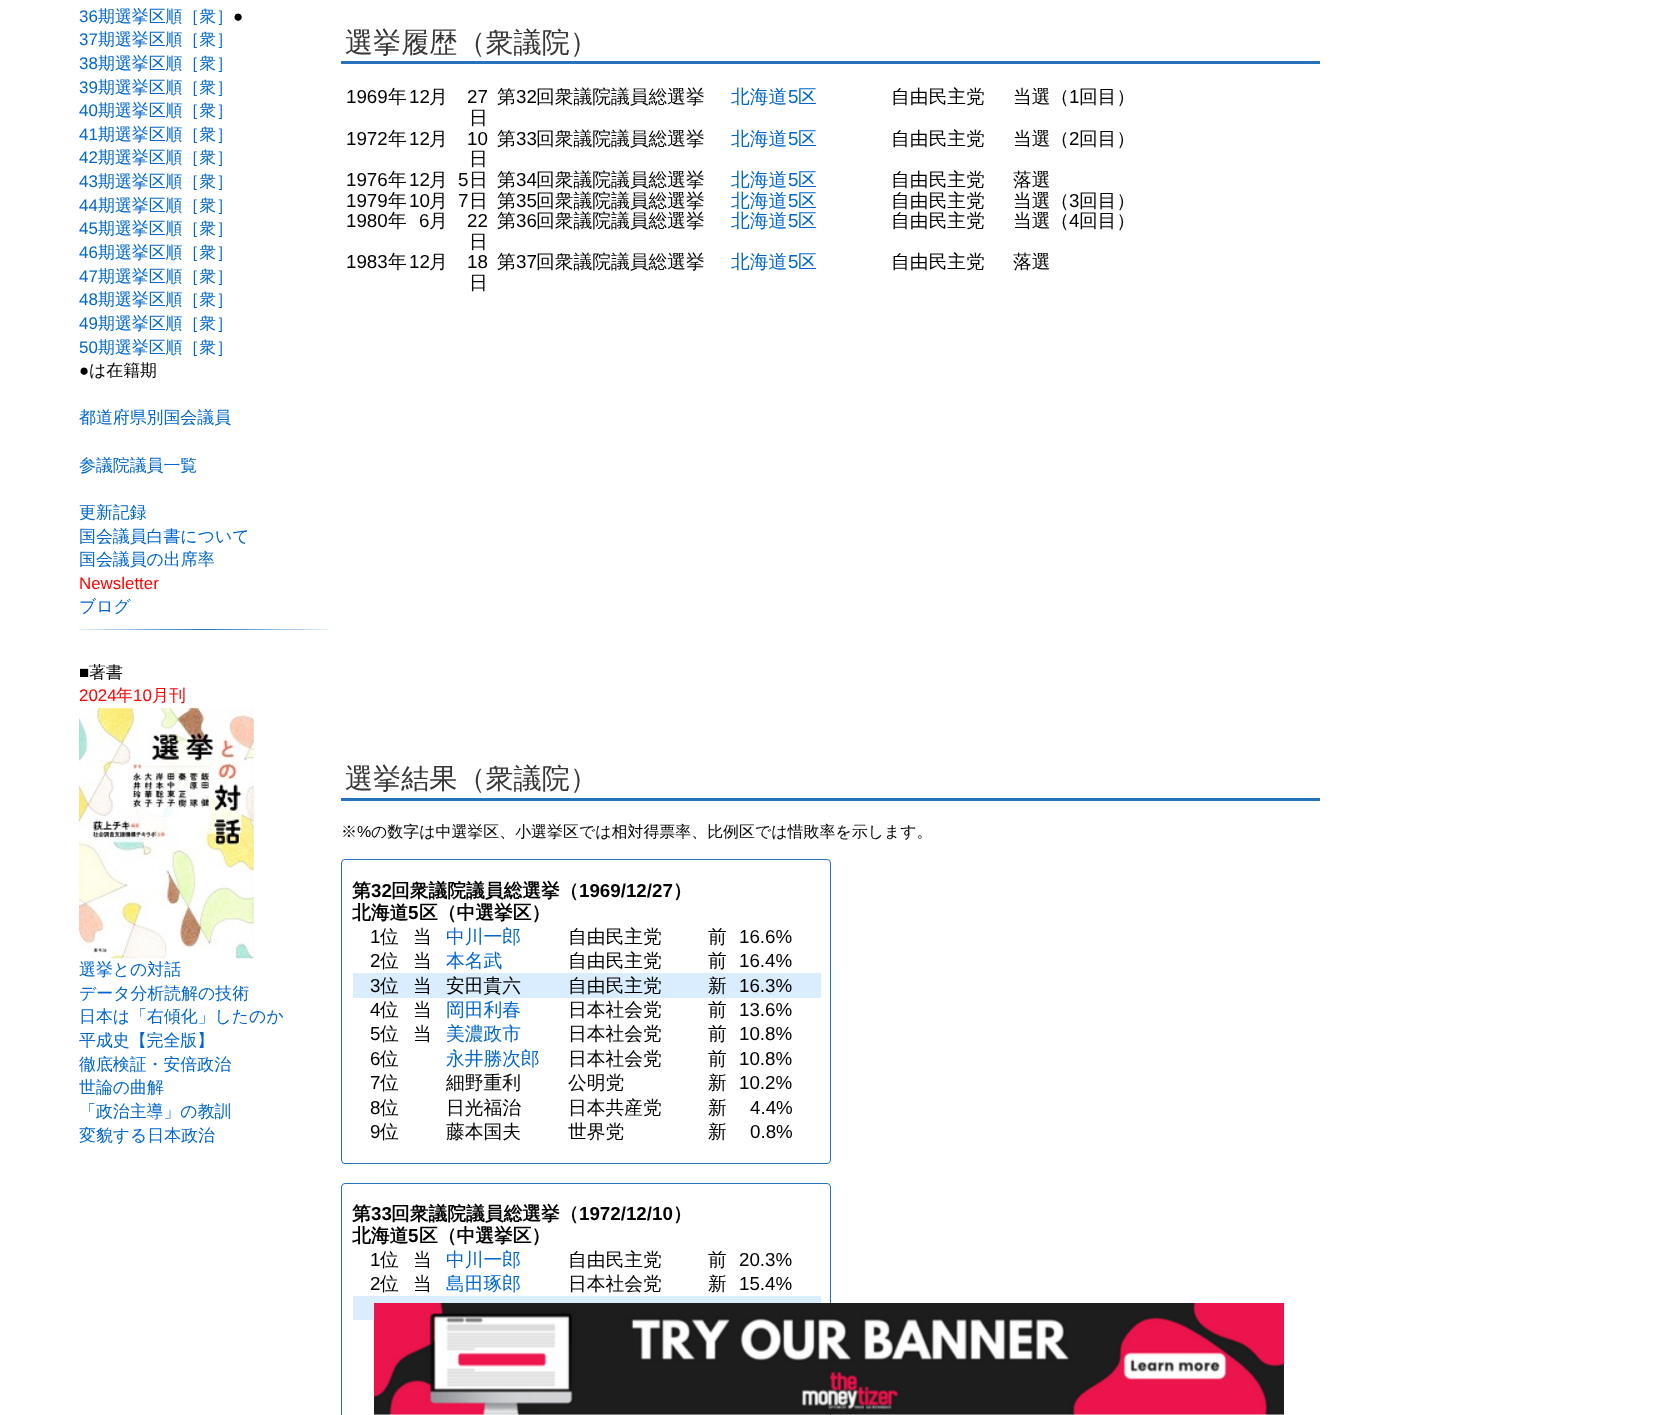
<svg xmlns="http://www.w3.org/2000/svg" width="1657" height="1415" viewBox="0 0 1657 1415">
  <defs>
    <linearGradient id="g1" gradientUnits="userSpaceOnUse" x1="79" y1="629" x2="329" y2="629"><stop offset="0" stop-color="#e3f1ff"/><stop offset="0.5" stop-color="#2772bc"/><stop offset="1" stop-color="#e3f1ff"/></linearGradient>
  </defs>
  <rect width="100%" height="100%" fill="#fff"/>
  <path d="M79 629h250v1H79z" fill="url(#g1)"/>
  <image x="78" y="708" width="176" height="251" href="img/1.png"/>
  <path d="M341 61h979v3H341z" fill="#2772bc"/>
  <path d="M341 798h979v3H341z" fill="#2772bc"/>
  <rect x="341.5" y="859.5" width="489" height="304" rx="3.5" fill="none" stroke="#2772bc"/>
  <path d="M353 973h468v25H353z" fill="#daedff"/>
  <rect x="341.5" y="1183.5" width="489" height="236" rx="3.5" fill="none" stroke="#2772bc"/>
  <path d="M353 1296h468v24H353z" fill="#daedff"/>
  <image x="374" y="1303" width="910" height="112" href="img/2.png"/>
  <text x="79" y="22" font-family="Liberation Sans" font-size="16.9" fill="#06c">36</text>
  <text x="98" y="22" font-family="WenQuanYi Zen Hei" font-size="16.9" font-weight="500" fill="#06c">期選挙区順［衆］</text>
  <text x="233" y="22" font-family="Liberation Sans" font-size="16.9" fill="#000">●</text>
  <text x="79" y="45" font-family="Liberation Sans" font-size="16.9" fill="#06c">37</text>
  <text x="98" y="45" font-family="WenQuanYi Zen Hei" font-size="16.9" font-weight="500" fill="#06c">期選挙区順［衆］</text>
  <text x="79" y="69" font-family="Liberation Sans" font-size="16.9" fill="#06c">38</text>
  <text x="98" y="69" font-family="WenQuanYi Zen Hei" font-size="16.9" font-weight="500" fill="#06c">期選挙区順［衆］</text>
  <text x="79" y="93" font-family="Liberation Sans" font-size="16.9" fill="#06c">39</text>
  <text x="98" y="93" font-family="WenQuanYi Zen Hei" font-size="16.9" font-weight="500" fill="#06c">期選挙区順［衆］</text>
  <text x="79" y="116" font-family="Liberation Sans" font-size="16.9" fill="#06c">40</text>
  <text x="98" y="116" font-family="WenQuanYi Zen Hei" font-size="16.9" font-weight="500" fill="#06c">期選挙区順［衆］</text>
  <text x="79" y="140" font-family="Liberation Sans" font-size="16.9" fill="#06c">41</text>
  <text x="98" y="140" font-family="WenQuanYi Zen Hei" font-size="16.9" font-weight="500" fill="#06c">期選挙区順［衆］</text>
  <text x="79" y="163" font-family="Liberation Sans" font-size="16.9" fill="#06c">42</text>
  <text x="98" y="163" font-family="WenQuanYi Zen Hei" font-size="16.9" font-weight="500" fill="#06c">期選挙区順［衆］</text>
  <text x="79" y="187" font-family="Liberation Sans" font-size="16.9" fill="#06c">43</text>
  <text x="98" y="187" font-family="WenQuanYi Zen Hei" font-size="16.9" font-weight="500" fill="#06c">期選挙区順［衆］</text>
  <text x="79" y="211" font-family="Liberation Sans" font-size="16.9" fill="#06c">44</text>
  <text x="98" y="211" font-family="WenQuanYi Zen Hei" font-size="16.9" font-weight="500" fill="#06c">期選挙区順［衆］</text>
  <text x="79" y="234" font-family="Liberation Sans" font-size="16.9" fill="#06c">45</text>
  <text x="98" y="234" font-family="WenQuanYi Zen Hei" font-size="16.9" font-weight="500" fill="#06c">期選挙区順［衆］</text>
  <text x="79" y="258" font-family="Liberation Sans" font-size="16.9" fill="#06c">46</text>
  <text x="98" y="258" font-family="WenQuanYi Zen Hei" font-size="16.9" font-weight="500" fill="#06c">期選挙区順［衆］</text>
  <text x="79" y="282" font-family="Liberation Sans" font-size="16.9" fill="#06c">47</text>
  <text x="98" y="282" font-family="WenQuanYi Zen Hei" font-size="16.9" font-weight="500" fill="#06c">期選挙区順［衆］</text>
  <text x="79" y="305" font-family="Liberation Sans" font-size="16.9" fill="#06c">48</text>
  <text x="98" y="305" font-family="WenQuanYi Zen Hei" font-size="16.9" font-weight="500" fill="#06c">期選挙区順［衆］</text>
  <text x="79" y="329" font-family="Liberation Sans" font-size="16.9" fill="#06c">49</text>
  <text x="98" y="329" font-family="WenQuanYi Zen Hei" font-size="16.9" font-weight="500" fill="#06c">期選挙区順［衆］</text>
  <text x="79" y="353" font-family="Liberation Sans" font-size="16.9" fill="#06c">50</text>
  <text x="98" y="353" font-family="WenQuanYi Zen Hei" font-size="16.9" font-weight="500" fill="#06c">期選挙区順［衆］</text>
  <text x="79" y="376" font-family="Liberation Sans" font-size="16.9" fill="#000">●</text>
  <text x="89" y="376" font-family="WenQuanYi Zen Hei" font-size="16.9" font-weight="500" fill="#000">は在籍期</text>
  <g font-family="WenQuanYi Zen Hei" font-size="16.9" font-weight="500" fill="#06c">
    <text x="79" y="423">都道府県別国会議員</text>
    <text x="79" y="471">参議院議員一覧</text>
    <text x="79" y="518">更新記録</text>
    <text x="79" y="542">国会議員白書について</text>
    <text x="79" y="565">国会議員の出席率</text>
  </g>
  <text x="79" y="589" font-family="Liberation Sans" font-size="16.9" fill="#f00">Newsletter</text>
  <text x="79" y="612" font-family="WenQuanYi Zen Hei" font-size="16.9" font-weight="500" fill="#06c">ブログ</text>
  <text x="79" y="678" font-family="Liberation Sans" font-size="16.9" fill="#000">■</text>
  <text x="89" y="678" font-family="WenQuanYi Zen Hei" font-size="16.9" font-weight="500" fill="#000">著書</text>
  <text x="79" y="701" font-family="Liberation Sans" font-size="16.9" fill="#f00">2024</text>
  <text x="116" y="701" font-family="WenQuanYi Zen Hei" font-size="16.9" font-weight="500" fill="#f00">年</text>
  <text x="133" y="701" font-family="Liberation Sans" font-size="16.9" fill="#f00">10</text>
  <text x="152" y="701" font-family="WenQuanYi Zen Hei" font-size="16.9" font-weight="500" fill="#f00">月刊</text>
  <g font-family="WenQuanYi Zen Hei" font-size="16.9" font-weight="500" fill="#06c">
    <text x="79" y="975">選挙との対話</text>
    <text x="79" y="999">データ分析読解の技術</text>
    <text x="79" y="1022">日本は「右傾化」したのか</text>
    <text x="79" y="1046">平成史【完全版】</text>
    <text x="79" y="1070">徹底検証・安倍政治</text>
    <text x="79" y="1093">世論の曲解</text>
    <text x="79" y="1117">「政治主導」の教訓</text>
    <text x="79" y="1141">変貌する日本政治</text>
  </g>
  <text x="345" y="52" font-family="WenQuanYi Zen Hei" font-size="28.1" font-weight="500" fill="#353535">選挙履歴（衆議院）</text>
  <text x="346" y="103" font-family="Liberation Sans" font-size="18.75" fill="#000">1969</text>
  <text x="388" y="103" font-family="WenQuanYi Zen Hei" font-size="18.75" font-weight="500" fill="#000">年</text>
  <text x="409" y="103" font-family="Liberation Sans" font-size="18.75" fill="#000">12</text>
  <text x="429" y="103" font-family="WenQuanYi Zen Hei" font-size="18.75" font-weight="500" fill="#000">月</text>
  <text x="467" y="103" font-family="Liberation Sans" font-size="18.75" fill="#000">27</text>
  <g font-family="WenQuanYi Zen Hei" font-size="18.75" font-weight="500" fill="#000">
    <text x="469" y="124">日</text>
    <text x="497" y="103">第</text>
  </g>
  <text x="516" y="103" font-family="Liberation Sans" font-size="18.75" fill="#000">32</text>
  <text x="536" y="103" font-family="WenQuanYi Zen Hei" font-size="18.75" font-weight="500" fill="#000">回衆議院議員総選挙</text>
  <text x="731" y="103" font-family="WenQuanYi Zen Hei" font-size="18.75" font-weight="500" fill="#06c">北海道</text>
  <text x="788" y="103" font-family="Liberation Sans" font-size="18.75" fill="#06c">5</text>
  <text x="798" y="103" font-family="WenQuanYi Zen Hei" font-size="18.75" font-weight="500" fill="#06c">区</text>
  <g font-family="WenQuanYi Zen Hei" font-size="18.75" font-weight="500" fill="#000">
    <text x="891" y="103">自由民主党</text>
    <text x="1013" y="103">当選（</text>
  </g>
  <text x="1069" y="103" font-family="Liberation Sans" font-size="18.75" fill="#000">1</text>
  <text x="1079" y="103" font-family="WenQuanYi Zen Hei" font-size="18.75" font-weight="500" fill="#000">回目）</text>
  <text x="346" y="145" font-family="Liberation Sans" font-size="18.75" fill="#000">1972</text>
  <text x="388" y="145" font-family="WenQuanYi Zen Hei" font-size="18.75" font-weight="500" fill="#000">年</text>
  <text x="409" y="145" font-family="Liberation Sans" font-size="18.75" fill="#000">12</text>
  <text x="429" y="145" font-family="WenQuanYi Zen Hei" font-size="18.75" font-weight="500" fill="#000">月</text>
  <text x="467" y="145" font-family="Liberation Sans" font-size="18.75" fill="#000">10</text>
  <g font-family="WenQuanYi Zen Hei" font-size="18.75" font-weight="500" fill="#000">
    <text x="469" y="165">日</text>
    <text x="497" y="145">第</text>
  </g>
  <text x="516" y="145" font-family="Liberation Sans" font-size="18.75" fill="#000">33</text>
  <text x="536" y="145" font-family="WenQuanYi Zen Hei" font-size="18.75" font-weight="500" fill="#000">回衆議院議員総選挙</text>
  <text x="731" y="145" font-family="WenQuanYi Zen Hei" font-size="18.75" font-weight="500" fill="#06c">北海道</text>
  <text x="788" y="145" font-family="Liberation Sans" font-size="18.75" fill="#06c">5</text>
  <text x="798" y="145" font-family="WenQuanYi Zen Hei" font-size="18.75" font-weight="500" fill="#06c">区</text>
  <g font-family="WenQuanYi Zen Hei" font-size="18.75" font-weight="500" fill="#000">
    <text x="891" y="145">自由民主党</text>
    <text x="1013" y="145">当選（</text>
  </g>
  <text x="1069" y="145" font-family="Liberation Sans" font-size="18.75" fill="#000">2</text>
  <text x="1079" y="145" font-family="WenQuanYi Zen Hei" font-size="18.75" font-weight="500" fill="#000">回目）</text>
  <text x="346" y="186" font-family="Liberation Sans" font-size="18.75" fill="#000">1976</text>
  <text x="388" y="186" font-family="WenQuanYi Zen Hei" font-size="18.75" font-weight="500" fill="#000">年</text>
  <text x="409" y="186" font-family="Liberation Sans" font-size="18.75" fill="#000">12</text>
  <text x="429" y="186" font-family="WenQuanYi Zen Hei" font-size="18.75" font-weight="500" fill="#000">月</text>
  <text x="458" y="186" font-family="Liberation Sans" font-size="18.75" fill="#000">5</text>
  <g font-family="WenQuanYi Zen Hei" font-size="18.75" font-weight="500" fill="#000">
    <text x="469" y="186">日</text>
    <text x="497" y="186">第</text>
  </g>
  <text x="516" y="186" font-family="Liberation Sans" font-size="18.75" fill="#000">34</text>
  <text x="536" y="186" font-family="WenQuanYi Zen Hei" font-size="18.75" font-weight="500" fill="#000">回衆議院議員総選挙</text>
  <text x="731" y="186" font-family="WenQuanYi Zen Hei" font-size="18.75" font-weight="500" fill="#06c">北海道</text>
  <text x="788" y="186" font-family="Liberation Sans" font-size="18.75" fill="#06c">5</text>
  <text x="798" y="186" font-family="WenQuanYi Zen Hei" font-size="18.75" font-weight="500" fill="#06c">区</text>
  <g font-family="WenQuanYi Zen Hei" font-size="18.75" font-weight="500" fill="#000">
    <text x="891" y="186">自由民主党</text>
    <text x="1013" y="186">落選</text>
  </g>
  <text x="346" y="207" font-family="Liberation Sans" font-size="18.75" fill="#000">1979</text>
  <text x="388" y="207" font-family="WenQuanYi Zen Hei" font-size="18.75" font-weight="500" fill="#000">年</text>
  <text x="409" y="207" font-family="Liberation Sans" font-size="18.75" fill="#000">10</text>
  <text x="429" y="207" font-family="WenQuanYi Zen Hei" font-size="18.75" font-weight="500" fill="#000">月</text>
  <text x="458" y="207" font-family="Liberation Sans" font-size="18.75" fill="#000">7</text>
  <g font-family="WenQuanYi Zen Hei" font-size="18.75" font-weight="500" fill="#000">
    <text x="469" y="207">日</text>
    <text x="497" y="207">第</text>
  </g>
  <text x="516" y="207" font-family="Liberation Sans" font-size="18.75" fill="#000">35</text>
  <text x="536" y="207" font-family="WenQuanYi Zen Hei" font-size="18.75" font-weight="500" fill="#000">回衆議院議員総選挙</text>
  <text x="731" y="207" font-family="WenQuanYi Zen Hei" font-size="18.75" font-weight="500" fill="#06c">北海道</text>
  <text x="788" y="207" font-family="Liberation Sans" font-size="18.75" fill="#06c">5</text>
  <text x="798" y="207" font-family="WenQuanYi Zen Hei" font-size="18.75" font-weight="500" fill="#06c">区</text>
  <g font-family="WenQuanYi Zen Hei" font-size="18.75" font-weight="500" fill="#000">
    <text x="891" y="207">自由民主党</text>
    <text x="1013" y="207">当選（</text>
  </g>
  <text x="1069" y="207" font-family="Liberation Sans" font-size="18.75" fill="#000">3</text>
  <text x="1079" y="207" font-family="WenQuanYi Zen Hei" font-size="18.75" font-weight="500" fill="#000">回目）</text>
  <text x="346" y="227" font-family="Liberation Sans" font-size="18.75" fill="#000">1980</text>
  <text x="388" y="227" font-family="WenQuanYi Zen Hei" font-size="18.75" font-weight="500" fill="#000">年</text>
  <text x="419" y="227" font-family="Liberation Sans" font-size="18.75" fill="#000">6</text>
  <text x="429" y="227" font-family="WenQuanYi Zen Hei" font-size="18.75" font-weight="500" fill="#000">月</text>
  <text x="467" y="227" font-family="Liberation Sans" font-size="18.75" fill="#000">22</text>
  <g font-family="WenQuanYi Zen Hei" font-size="18.75" font-weight="500" fill="#000">
    <text x="469" y="248">日</text>
    <text x="497" y="227">第</text>
  </g>
  <text x="516" y="227" font-family="Liberation Sans" font-size="18.75" fill="#000">36</text>
  <text x="536" y="227" font-family="WenQuanYi Zen Hei" font-size="18.75" font-weight="500" fill="#000">回衆議院議員総選挙</text>
  <text x="731" y="227" font-family="WenQuanYi Zen Hei" font-size="18.75" font-weight="500" fill="#06c">北海道</text>
  <text x="788" y="227" font-family="Liberation Sans" font-size="18.75" fill="#06c">5</text>
  <text x="798" y="227" font-family="WenQuanYi Zen Hei" font-size="18.75" font-weight="500" fill="#06c">区</text>
  <g font-family="WenQuanYi Zen Hei" font-size="18.75" font-weight="500" fill="#000">
    <text x="891" y="227">自由民主党</text>
    <text x="1013" y="227">当選（</text>
  </g>
  <text x="1069" y="227" font-family="Liberation Sans" font-size="18.75" fill="#000">4</text>
  <text x="1079" y="227" font-family="WenQuanYi Zen Hei" font-size="18.75" font-weight="500" fill="#000">回目）</text>
  <text x="346" y="268" font-family="Liberation Sans" font-size="18.75" fill="#000">1983</text>
  <text x="388" y="268" font-family="WenQuanYi Zen Hei" font-size="18.75" font-weight="500" fill="#000">年</text>
  <text x="409" y="268" font-family="Liberation Sans" font-size="18.75" fill="#000">12</text>
  <text x="429" y="268" font-family="WenQuanYi Zen Hei" font-size="18.75" font-weight="500" fill="#000">月</text>
  <text x="467" y="268" font-family="Liberation Sans" font-size="18.75" fill="#000">18</text>
  <g font-family="WenQuanYi Zen Hei" font-size="18.75" font-weight="500" fill="#000">
    <text x="469" y="289">日</text>
    <text x="497" y="268">第</text>
  </g>
  <text x="516" y="268" font-family="Liberation Sans" font-size="18.75" fill="#000">37</text>
  <text x="536" y="268" font-family="WenQuanYi Zen Hei" font-size="18.75" font-weight="500" fill="#000">回衆議院議員総選挙</text>
  <text x="731" y="268" font-family="WenQuanYi Zen Hei" font-size="18.75" font-weight="500" fill="#06c">北海道</text>
  <text x="788" y="268" font-family="Liberation Sans" font-size="18.75" fill="#06c">5</text>
  <text x="798" y="268" font-family="WenQuanYi Zen Hei" font-size="18.75" font-weight="500" fill="#06c">区</text>
  <g font-family="WenQuanYi Zen Hei" font-size="18.75" font-weight="500" fill="#000">
    <text x="891" y="268">自由民主党</text>
    <text x="1013" y="268">落選</text>
  </g>
  <text x="345" y="788" font-family="WenQuanYi Zen Hei" font-size="28.1" font-weight="500" fill="#353535">選挙結果（衆議院）</text>
  <text x="341" y="837" font-family="WenQuanYi Zen Hei" font-size="15.95" font-weight="500" fill="#000">※</text>
  <text x="357" y="837" font-family="Liberation Sans" font-size="15.95" fill="#000">%</text>
  <text x="371" y="837" font-family="WenQuanYi Zen Hei" font-size="15.95" font-weight="500" fill="#000">の数字は中選挙区、小選挙区では相対得票率、比例区では惜敗率を示します。</text>
  <text x="352" y="897" font-family="WenQuanYi Zen Hei" font-size="18.75" font-weight="bold" fill="#000">第</text>
  <text x="371" y="897" font-family="Liberation Sans" font-size="18.75" font-weight="bold" fill="#000">32</text>
  <text x="391" y="897" font-family="WenQuanYi Zen Hei" font-size="18.75" font-weight="bold" fill="#000">回衆議院議員総選挙（</text>
  <text x="579" y="897" font-family="Liberation Sans" font-size="18.75" font-weight="bold" fill="#000">1969/12/27</text>
  <g font-family="WenQuanYi Zen Hei" font-size="18.75" font-weight="bold" fill="#000">
    <text x="673" y="897">）</text>
    <text x="352" y="919">北海道</text>
  </g>
  <text x="408" y="919" font-family="Liberation Sans" font-size="18.75" font-weight="bold" fill="#000">5</text>
  <text x="419" y="919" font-family="WenQuanYi Zen Hei" font-size="18.75" font-weight="bold" fill="#000">区（中選挙区）</text>
  <text x="370" y="943" font-family="Liberation Sans" font-size="18.75" fill="#000">1</text>
  <g font-family="WenQuanYi Zen Hei" font-size="18.75" font-weight="500" fill="#000">
    <text x="380" y="943">位</text>
    <text x="413" y="943">当</text>
  </g>
  <text x="446" y="943" font-family="WenQuanYi Zen Hei" font-size="18.75" font-weight="500" fill="#06c">中川一郎</text>
  <g font-family="WenQuanYi Zen Hei" font-size="18.75" font-weight="500" fill="#000">
    <text x="568" y="943">自由民主党</text>
    <text x="708" y="943">前</text>
  </g>
  <g font-family="Liberation Sans" font-size="18.75" fill="#000">
    <text x="739" y="943">16.6%</text>
    <text x="370" y="967">2</text>
  </g>
  <g font-family="WenQuanYi Zen Hei" font-size="18.75" font-weight="500" fill="#000">
    <text x="380" y="967">位</text>
    <text x="413" y="967">当</text>
  </g>
  <text x="446" y="967" font-family="WenQuanYi Zen Hei" font-size="18.75" font-weight="500" fill="#06c">本名武</text>
  <g font-family="WenQuanYi Zen Hei" font-size="18.75" font-weight="500" fill="#000">
    <text x="568" y="967">自由民主党</text>
    <text x="708" y="967">前</text>
  </g>
  <g font-family="Liberation Sans" font-size="18.75" fill="#000">
    <text x="739" y="967">16.4%</text>
    <text x="370" y="992">3</text>
  </g>
  <g font-family="WenQuanYi Zen Hei" font-size="18.75" font-weight="500" fill="#000">
    <text x="380" y="992">位</text>
    <text x="413" y="992">当</text>
    <text x="446" y="992">安田貴六</text>
    <text x="568" y="992">自由民主党</text>
    <text x="708" y="992">新</text>
  </g>
  <g font-family="Liberation Sans" font-size="18.75" fill="#000">
    <text x="739" y="992">16.3%</text>
    <text x="370" y="1016">4</text>
  </g>
  <g font-family="WenQuanYi Zen Hei" font-size="18.75" font-weight="500" fill="#000">
    <text x="380" y="1016">位</text>
    <text x="413" y="1016">当</text>
  </g>
  <text x="446" y="1016" font-family="WenQuanYi Zen Hei" font-size="18.75" font-weight="500" fill="#06c">岡田利春</text>
  <g font-family="WenQuanYi Zen Hei" font-size="18.75" font-weight="500" fill="#000">
    <text x="568" y="1016">日本社会党</text>
    <text x="708" y="1016">前</text>
  </g>
  <g font-family="Liberation Sans" font-size="18.75" fill="#000">
    <text x="739" y="1016">13.6%</text>
    <text x="370" y="1040">5</text>
  </g>
  <g font-family="WenQuanYi Zen Hei" font-size="18.75" font-weight="500" fill="#000">
    <text x="380" y="1040">位</text>
    <text x="413" y="1040">当</text>
  </g>
  <text x="446" y="1040" font-family="WenQuanYi Zen Hei" font-size="18.75" font-weight="500" fill="#06c">美濃政市</text>
  <g font-family="WenQuanYi Zen Hei" font-size="18.75" font-weight="500" fill="#000">
    <text x="568" y="1040">日本社会党</text>
    <text x="708" y="1040">前</text>
  </g>
  <g font-family="Liberation Sans" font-size="18.75" fill="#000">
    <text x="739" y="1040">10.8%</text>
    <text x="370" y="1065">6</text>
  </g>
  <text x="380" y="1065" font-family="WenQuanYi Zen Hei" font-size="18.75" font-weight="500" fill="#000">位</text>
  <text x="446" y="1065" font-family="WenQuanYi Zen Hei" font-size="18.75" font-weight="500" fill="#06c">永井勝次郎</text>
  <g font-family="WenQuanYi Zen Hei" font-size="18.75" font-weight="500" fill="#000">
    <text x="568" y="1065">日本社会党</text>
    <text x="708" y="1065">前</text>
  </g>
  <g font-family="Liberation Sans" font-size="18.75" fill="#000">
    <text x="739" y="1065">10.8%</text>
    <text x="370" y="1089">7</text>
  </g>
  <g font-family="WenQuanYi Zen Hei" font-size="18.75" font-weight="500" fill="#000">
    <text x="380" y="1089">位</text>
    <text x="446" y="1089">細野重利</text>
    <text x="568" y="1089">公明党</text>
    <text x="708" y="1089">新</text>
  </g>
  <g font-family="Liberation Sans" font-size="18.75" fill="#000">
    <text x="739" y="1089">10.2%</text>
    <text x="370" y="1114">8</text>
  </g>
  <g font-family="WenQuanYi Zen Hei" font-size="18.75" font-weight="500" fill="#000">
    <text x="380" y="1114">位</text>
    <text x="446" y="1114">日光福治</text>
    <text x="568" y="1114">日本共産党</text>
    <text x="708" y="1114">新</text>
  </g>
  <g font-family="Liberation Sans" font-size="18.75" fill="#000">
    <text x="750" y="1114">4.4%</text>
    <text x="370" y="1138">9</text>
  </g>
  <g font-family="WenQuanYi Zen Hei" font-size="18.75" font-weight="500" fill="#000">
    <text x="380" y="1138">位</text>
    <text x="446" y="1138">藤本国夫</text>
    <text x="568" y="1138">世界党</text>
    <text x="708" y="1138">新</text>
  </g>
  <text x="750" y="1138" font-family="Liberation Sans" font-size="18.75" fill="#000">0.8%</text>
  <text x="352" y="1220" font-family="WenQuanYi Zen Hei" font-size="18.75" font-weight="bold" fill="#000">第</text>
  <text x="371" y="1220" font-family="Liberation Sans" font-size="18.75" font-weight="bold" fill="#000">33</text>
  <text x="391" y="1220" font-family="WenQuanYi Zen Hei" font-size="18.75" font-weight="bold" fill="#000">回衆議院議員総選挙（</text>
  <text x="579" y="1220" font-family="Liberation Sans" font-size="18.75" font-weight="bold" fill="#000">1972/12/10</text>
  <g font-family="WenQuanYi Zen Hei" font-size="18.75" font-weight="bold" fill="#000">
    <text x="673" y="1220">）</text>
    <text x="352" y="1242">北海道</text>
  </g>
  <text x="408" y="1242" font-family="Liberation Sans" font-size="18.75" font-weight="bold" fill="#000">5</text>
  <text x="419" y="1242" font-family="WenQuanYi Zen Hei" font-size="18.75" font-weight="bold" fill="#000">区（中選挙区）</text>
  <text x="370" y="1266" font-family="Liberation Sans" font-size="18.75" fill="#000">1</text>
  <g font-family="WenQuanYi Zen Hei" font-size="18.75" font-weight="500" fill="#000">
    <text x="380" y="1266">位</text>
    <text x="413" y="1266">当</text>
  </g>
  <text x="446" y="1266" font-family="WenQuanYi Zen Hei" font-size="18.75" font-weight="500" fill="#06c">中川一郎</text>
  <g font-family="WenQuanYi Zen Hei" font-size="18.75" font-weight="500" fill="#000">
    <text x="568" y="1266">自由民主党</text>
    <text x="708" y="1266">前</text>
  </g>
  <g font-family="Liberation Sans" font-size="18.75" fill="#000">
    <text x="739" y="1266">20.3%</text>
    <text x="370" y="1290">2</text>
  </g>
  <g font-family="WenQuanYi Zen Hei" font-size="18.75" font-weight="500" fill="#000">
    <text x="380" y="1290">位</text>
    <text x="413" y="1290">当</text>
  </g>
  <text x="446" y="1290" font-family="WenQuanYi Zen Hei" font-size="18.75" font-weight="500" fill="#06c">島田琢郎</text>
  <g font-family="WenQuanYi Zen Hei" font-size="18.75" font-weight="500" fill="#000">
    <text x="568" y="1290">日本社会党</text>
    <text x="708" y="1290">新</text>
  </g>
  <text x="739" y="1290" font-family="Liberation Sans" font-size="18.75" fill="#000">15.4%</text>
</svg>
